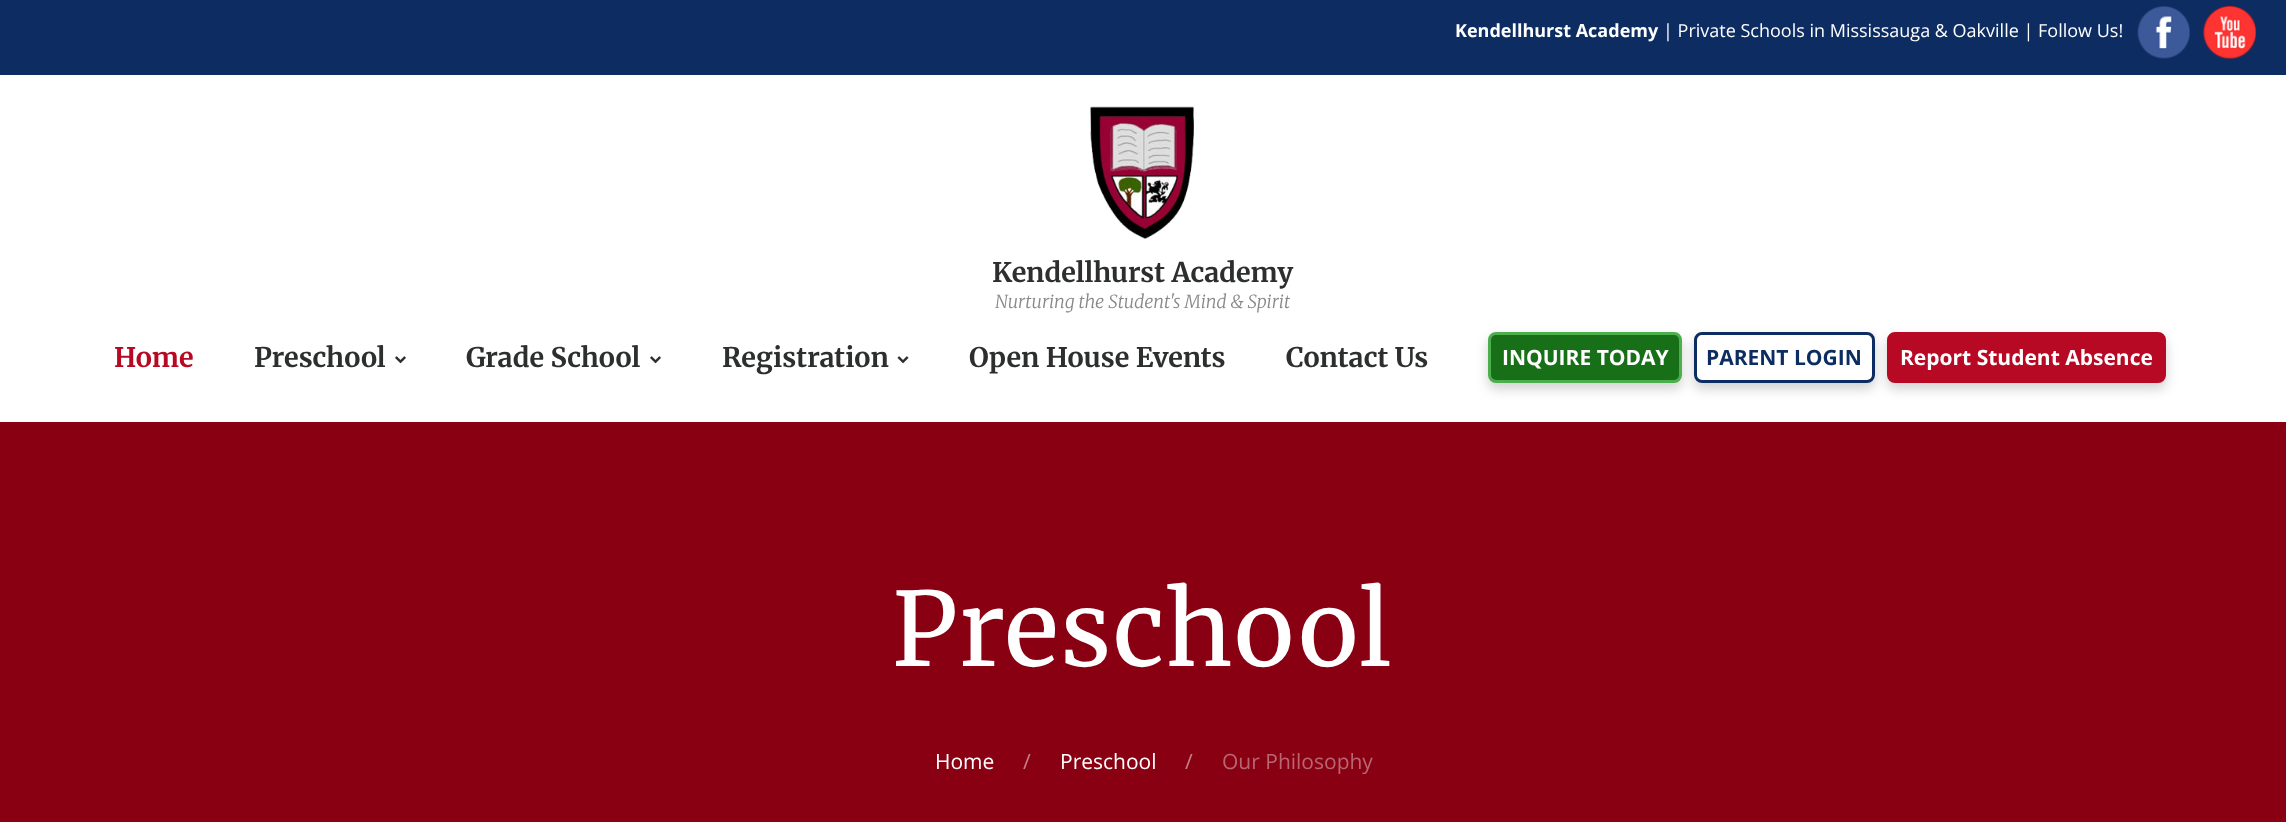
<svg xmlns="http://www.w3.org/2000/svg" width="2286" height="822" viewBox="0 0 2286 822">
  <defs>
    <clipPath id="clip1"><path d="M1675 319H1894V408H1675ZM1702 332H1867C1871.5 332 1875 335.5 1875 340V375C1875 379.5 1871.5 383 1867 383H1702C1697.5 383 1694 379.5 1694 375V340C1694 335.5 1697.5 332 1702 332Z" clip-rule="evenodd"/></clipPath>
  </defs>
  <rect width="100%" height="100%" fill="#890013"/>
  <path d="M0 75h2286v347H0z" fill="#fff"/>
  <path d="M0 0h2286v75H0z" fill="#0d2d62"/>
  <image x="2137" y="6" width="53" height="53" href="img/1.png"/>
  <image x="2203" y="6" width="53" height="53" href="img/2.png"/>
  <image x="1090" y="106" width="104" height="133" href="img/3.png"/>
  <image x="395" y="356" width="11" height="8" href="img/4.png"/>
  <image x="650" y="356" width="11" height="8" href="img/4.png"/>
  <image x="897" y="356" width="12" height="8" href="img/5.png"/>
  <rect x="1488" y="338" width="194" height="51" rx="8" fill="#0000002e" filter="blur(6px)"/>
  <rect x="1489.5" y="333.5" width="191" height="48" rx="6.5" fill="#177017" stroke="#4cae4c" stroke-width="3"/>
  <g clip-path="url(#clip1)">
    <rect x="1694" y="338" width="181" height="51" rx="8" fill="#0000002e" filter="blur(6px)"/>
  </g>
  <rect x="1695.5" y="333.5" width="178" height="48" rx="6.5" fill="none" stroke="#0d2d62" stroke-width="3"/>
  <rect x="1887" y="338" width="279" height="51" rx="8" fill="#0000002e" filter="blur(6px)"/>
  <rect x="1888.5" y="333.5" width="276" height="48" rx="6.5" fill="#b80924" stroke="#b80924" stroke-width="3"/>
  <text x="1455" y="37" font-family="Open Sans" font-size="18" font-weight="bold" fill="#fff">Kendellhurst Academy</text>
  <text x="1663" y="37" font-family="Open Sans" font-size="18" fill="#fff">| Private Schools in Mississauga &amp; Oakville | Follow Us!</text>
  <text x="992" y="282" font-family="Merriweather" font-size="27" font-weight="bold" fill="#2d2e2e">Kendellhurst Academy</text>
  <text x="995" y="308" font-family="Merriweather" font-size="18" font-weight="300" font-style="italic" fill="#888">Nurturing the Student's Mind &amp; Spirit</text>
  <text x="114" y="367" font-family="Merriweather" font-size="27" font-weight="bold" fill="#b80924">Home</text>
  <g font-family="Merriweather" font-size="27" font-weight="bold" fill="#2d2e2e">
    <text x="254" y="367">Preschool</text>
    <text x="466" y="367">Grade School</text>
    <text x="722" y="367">Registration</text>
    <text x="969" y="367">Open House Events</text>
    <text x="1286" y="367">Contact Us</text>
  </g>
  <text x="1502" y="365" font-family="Open Sans" font-size="21" font-weight="bold" fill="#fff">INQUIRE TODAY</text>
  <text x="1706" y="365" font-family="Open Sans" font-size="21" font-weight="bold" fill="#0d2d62">PARENT LOGIN</text>
  <text x="1900" y="365" font-family="Open Sans" font-size="21" font-weight="bold" fill="#fff">Report Student Absence</text>
  <text x="892" y="666" font-family="Merriweather" font-size="102" letter-spacing="2" fill="#fff">Preschool</text>
  <text x="935" y="769" font-family="Open Sans" font-size="21" fill="#fff">Home</text>
  <text x="1023" y="769" font-family="Open Sans" font-size="21" fill="#c48089">/</text>
  <text x="1060" y="769" font-family="Open Sans" font-size="21" fill="#fff">Preschool</text>
  <text x="1185" y="769" font-family="Open Sans" font-size="21" fill="#c48089">/</text>
  <text x="1222" y="769" font-family="Open Sans" font-size="21" fill="#b86671">Our Philosophy</text>
</svg>
